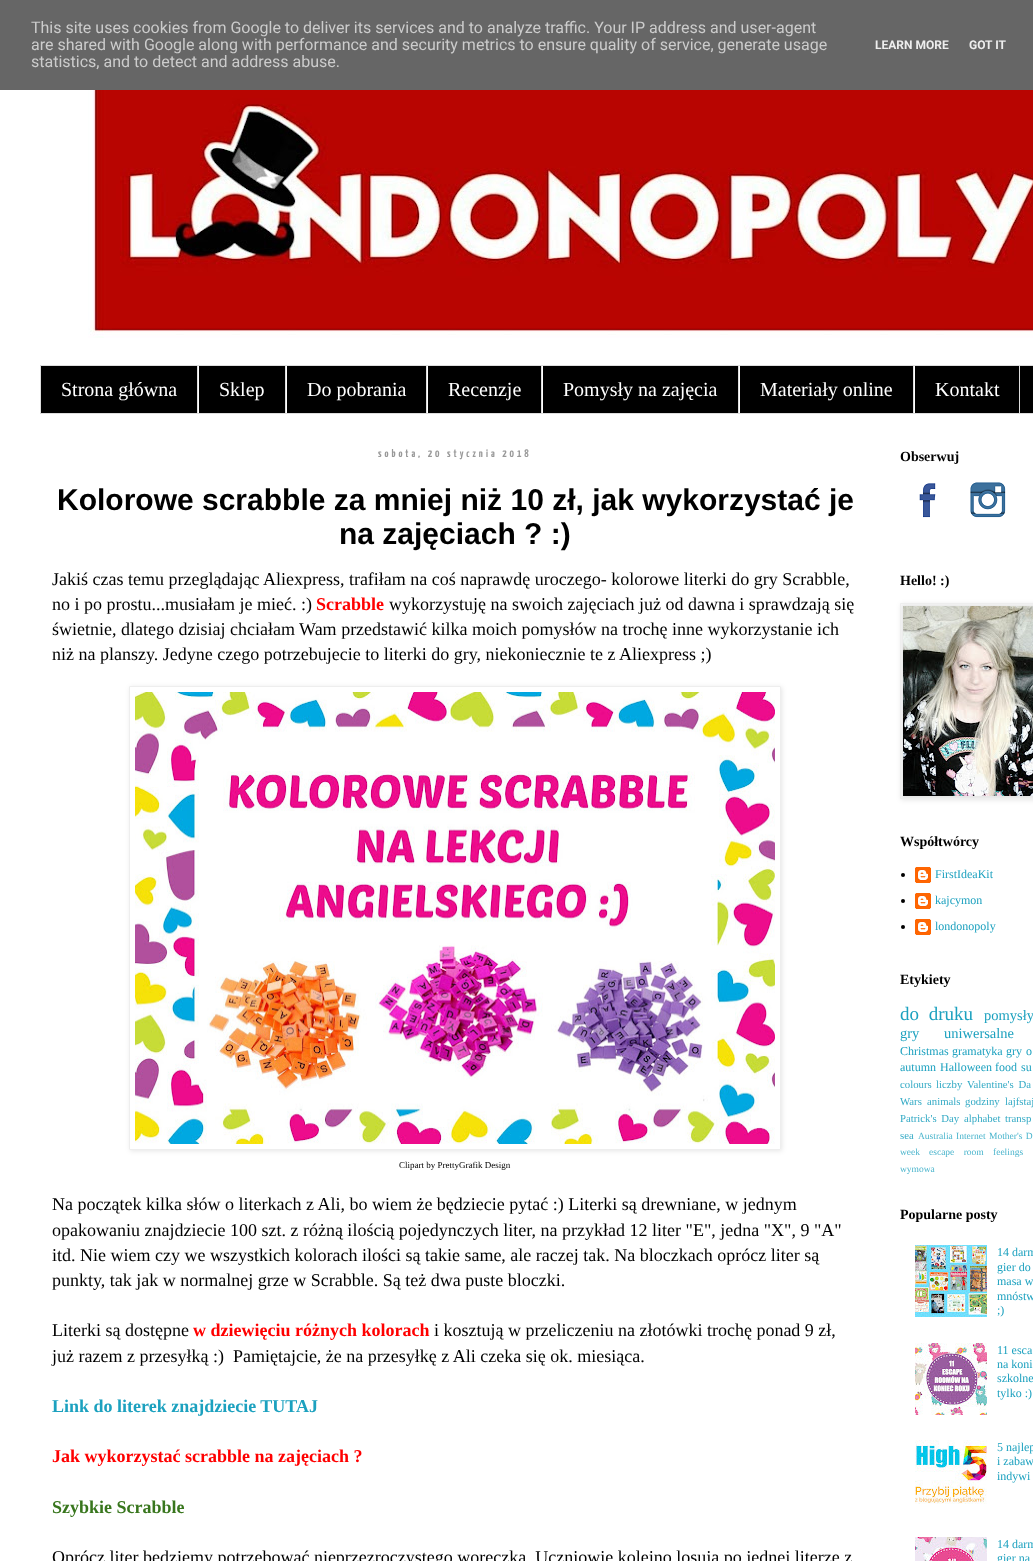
<svg xmlns="http://www.w3.org/2000/svg" width="1033" height="1561" viewBox="0 0 1033 1561">
  <defs>
    <clipPath id="clip1"><path d="M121 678H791V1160H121ZM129 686H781V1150H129Z" clip-rule="evenodd"/></clipPath>
  </defs>
  <rect width="100%" height="100%" fill="#fff"/>
  <path d="M0 0h1033v90H0z" fill="#666"/>
  <image x="88" y="90" width="945" height="248" href="img/1.png"/>
  <path d="M40.5 365.5h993v48H40.5z" fill="#000" stroke="#ddd"/>
  <path d="M197 366h1v47H197z" fill="#ddd"/>
  <path d="M285 366h1v47H285z" fill="#ddd"/>
  <path d="M198 366h1v47H198z" fill="#fff"/>
  <path d="M426 366h1v47H426z" fill="#ddd"/>
  <path d="M286 366h1v47H286z" fill="#fff"/>
  <path d="M541 366h1v47H541z" fill="#ddd"/>
  <path d="M427 366h1v47H427z" fill="#fff"/>
  <path d="M738 366h1v47H738z" fill="#ddd"/>
  <path d="M542 366h1v47H542z" fill="#fff"/>
  <path d="M913 366h1v47H913z" fill="#ddd"/>
  <path d="M739 366h1v47H739z" fill="#fff"/>
  <path d="M1019 366h1v47H1019z" fill="#ddd"/>
  <path d="M914 366h1v47H914z" fill="#fff"/>
  <g clip-path="url(#clip1)">
    <path d="M130 687h652v464H130z" fill="#0000001a" filter="blur(2.5px)"/>
  </g>
  <path d="M129.5 686.5h651v463H129.5z" fill="none" stroke="#eee"/>
  <image x="135" y="692" width="640" height="452" href="img/2.png"/>
  <image x="919" y="483" width="17" height="35" href="img/3.png"/>
  <image x="970" y="482" width="36" height="36" href="img/4.png"/>
  <path d="M901 604h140v196H901z" fill="#0000001a" filter="blur(2.5px)"/>
  <path d="M900.5 603.5h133v195H900.5z" fill="none" stroke="#eee"/>
  <image x="903" y="606" width="130" height="190" href="img/5.png"/>
  <circle cx="903" cy="875" r="2" fill="#000"/>
  <image x="915" y="867" width="16" height="16" href="img/6.png"/>
  <circle cx="903" cy="901" r="2" fill="#000"/>
  <image x="915" y="893" width="16" height="16" href="img/6.png"/>
  <circle cx="903" cy="927" r="2" fill="#000"/>
  <image x="915" y="919" width="16" height="16" href="img/6.png"/>
  <image x="915" y="1245" width="72" height="72" href="img/7.png"/>
  <image x="915" y="1343" width="72" height="72" href="img/8.png"/>
  <image x="915" y="1440" width="72" height="64" href="img/9.png"/>
  <image x="915" y="1537" width="72" height="24" href="img/10.png"/>
  <g font-family="Roboto" font-size="16" fill="#ccc">
    <text x="31" y="33">This site uses cookies from Google to deliver its services and to analyze traffic. Your IP address and user-agent</text>
    <text x="31" y="50">are shared with Google along with performance and security metrics to ensure quality of service, generate usage</text>
    <text x="31" y="67">statistics, and to detect and address abuse.</text>
  </g>
  <g font-family="Roboto" font-size="12" font-weight="bold" fill="#eee">
    <text x="875" y="49">LEARN MORE</text>
    <text x="969" y="49">GOT IT</text>
  </g>
  <g font-family="Liberation Serif" font-size="20" fill="#fff">
    <text x="61" y="396">Strona główna</text>
    <text x="219" y="396">Sklep</text>
    <text x="307" y="396">Do pobrania</text>
    <text x="448" y="396">Recenzje</text>
    <text x="563" y="396">Pomysły na zajęcia</text>
    <text x="760" y="396">Materiały online</text>
    <text x="935" y="396">Kontakt</text>
  </g>
  <text x="378" y="457" font-family="Yanone Kaffeesatz" font-size="11" font-weight="200" letter-spacing="3" fill="#999">sobota, 20 stycznia 2018</text>
  <g font-family="Liberation Sans" font-size="30" font-weight="bold" fill="#000">
    <text x="57" y="510">Kolorowe scrabble za mniej niż 10 zł, jak wykorzystać je</text>
    <text x="339" y="544">na zajęciach ? :)</text>
  </g>
  <g font-family="Liberation Serif" font-size="18" fill="#000">
    <text x="52" y="585">Jakiś czas temu przeglądając Aliexpress, trafiłam na coś naprawdę uroczego- kolorowe literki do gry Scrabble,</text>
    <text x="52" y="610">no i po prostu...musiałam je mieć. :)</text>
  </g>
  <text x="316" y="610" font-family="Liberation Serif" font-size="18" font-weight="bold" fill="#f00">Scrabble</text>
  <g font-family="Liberation Serif" font-size="18" fill="#000">
    <text x="389" y="610">wykorzystuję na swoich zajęciach już od dawna i sprawdzają się</text>
    <text x="52" y="635">świetnie, dlatego dzisiaj chciałam Wam przedstawić kilka moich pomysłów na trochę inne wykorzystanie ich</text>
    <text x="52" y="660">niż na planszy. Jedyne czego potrzebujecie to literki do gry, niekoniecznie te z Aliexpress ;)</text>
  </g>
  <text x="399" y="1168" font-family="Liberation Serif" font-size="9" fill="#000">Clipart by PrettyGrafik Design</text>
  <g font-family="Liberation Serif" font-size="18" fill="#000">
    <text x="52" y="1210">Na początek kilka słów o literkach z Ali, bo wiem że będziecie pytać :) Literki są drewniane, w jednym</text>
    <text x="52" y="1236">opakowaniu znajdziecie 100 szt. z różną ilością pojedynczych liter, na przykład 12 liter "E", jedna "X", 9 "A"</text>
    <text x="52" y="1261">itd. Nie wiem czy we wszystkich kolorach ilości są takie same, ale raczej tak. Na bloczkach oprócz liter są</text>
    <text x="52" y="1286">punkty, tak jak w normalnej grze w Scrabble. Są też dwa puste bloczki.</text>
    <text x="52" y="1336">Literki są dostępne</text>
  </g>
  <text x="193" y="1336" font-family="Liberation Serif" font-size="18" font-weight="bold" fill="#f00">w dziewięciu różnych kolorach</text>
  <g font-family="Liberation Serif" font-size="18" fill="#000">
    <text x="434" y="1336">i kosztują w przeliczeniu na złotówki trochę ponad 9 zł,</text>
    <text x="52" y="1362" xml:space="preserve">już razem z przesyłką :)  Pamiętajcie, że na przesyłkę z Ali czeka się ok. miesiąca.</text>
  </g>
  <text x="52" y="1412" font-family="Liberation Serif" font-size="18" font-weight="bold" fill="#1ca1bf">Link do literek znajdziecie TUTAJ</text>
  <text x="52" y="1462" font-family="Liberation Serif" font-size="18" font-weight="bold" fill="#f00">Jak wykorzystać scrabble na zajęciach ?</text>
  <text x="52" y="1513" font-family="Liberation Serif" font-size="18" font-weight="bold" fill="#38761d">Szybkie Scrabble</text>
  <text x="52" y="1563" font-family="Liberation Serif" font-size="18" fill="#000">Oprócz liter będziemy potrzebować nieprzezroczystego woreczka. Uczniowie kolejno losują po jednej literze z</text>
  <g font-family="Liberation Serif" font-size="14" font-weight="bold" fill="#000">
    <text x="900" y="461">Obserwuj</text>
    <text x="900" y="585">Hello! :)</text>
    <text x="900" y="846">Współtwórcy</text>
  </g>
  <g font-family="Liberation Serif" font-size="12" fill="#1ca1bf">
    <text x="935" y="878">FirstIdeaKit</text>
    <text x="935" y="904">kajcymon</text>
    <text x="935" y="930">londonopoly</text>
  </g>
  <text x="900" y="984" font-family="Liberation Serif" font-size="14" font-weight="bold" fill="#000">Etykiety</text>
  <text x="900" y="1020" word-spacing="5" font-family="Liberation Serif" font-size="19" fill="#1ca1bf">do druku</text>
  <g font-family="Liberation Serif" font-size="14.5" fill="#1ca1bf">
    <text x="984" y="1020">pomysły</text>
    <text x="900" y="1038" word-spacing="21">gry uniwersalne</text>
  </g>
  <g font-family="Liberation Serif" font-size="12" fill="#1ca1bf">
    <text x="900" y="1055">Christmas</text>
    <text x="952" y="1055">gramatyka</text>
    <text x="1006" y="1055" word-spacing="1">gry o</text>
    <text x="900" y="1071">autumn</text>
    <text x="940" y="1071">Halloween</text>
    <text x="995" y="1071">food</text>
    <text x="1021" y="1071">su</text>
  </g>
  <g font-family="Liberation Serif" font-size="10.75" fill="#33aac5">
    <text x="900" y="1088">colours</text>
    <text x="936" y="1088">liczby</text>
    <text x="967" y="1088" word-spacing="2">Valentine's Da</text>
    <text x="900" y="1105">Wars</text>
    <text x="927" y="1105">animals</text>
    <text x="965" y="1105">godziny</text>
    <text x="1005" y="1105">lajfstaj</text>
    <text x="900" y="1122" word-spacing="2">Patrick's Day</text>
    <text x="964" y="1122">alphabet</text>
    <text x="1005" y="1122">transp</text>
    <text x="900" y="1139">sea</text>
  </g>
  <g font-family="Liberation Serif" font-size="9.5" fill="#49b4cc">
    <text x="918" y="1139">Australia</text>
    <text x="956" y="1139">Internet</text>
    <text x="989" y="1139" word-spacing="1">Mother's D</text>
    <text x="900" y="1155">week</text>
    <text x="929" y="1155" word-spacing="7">escape room</text>
    <text x="993" y="1155">feelings</text>
    <text x="900" y="1172">wymowa</text>
  </g>
  <text x="900" y="1219" font-family="Liberation Serif" font-size="14" font-weight="bold" fill="#000">Popularne posty</text>
  <g font-family="Liberation Serif" font-size="12" fill="#1ca1bf">
    <text x="997" y="1256">14 darm</text>
    <text x="997" y="1271">gier do</text>
    <text x="997" y="1285">masa w</text>
    <text x="997" y="1300">mnóstw</text>
    <text x="997" y="1314">;)</text>
    <text x="997" y="1354">11 esca</text>
    <text x="997" y="1368">na koni</text>
    <text x="997" y="1382">szkolne</text>
    <text x="997" y="1397">tylko :)</text>
    <text x="997" y="1451">5 najlep</text>
    <text x="997" y="1465">i zabaw</text>
    <text x="997" y="1480">indywi</text>
    <text x="997" y="1548">14 darm</text>
    <text x="997" y="1562">gier na</text>
  </g>
</svg>
